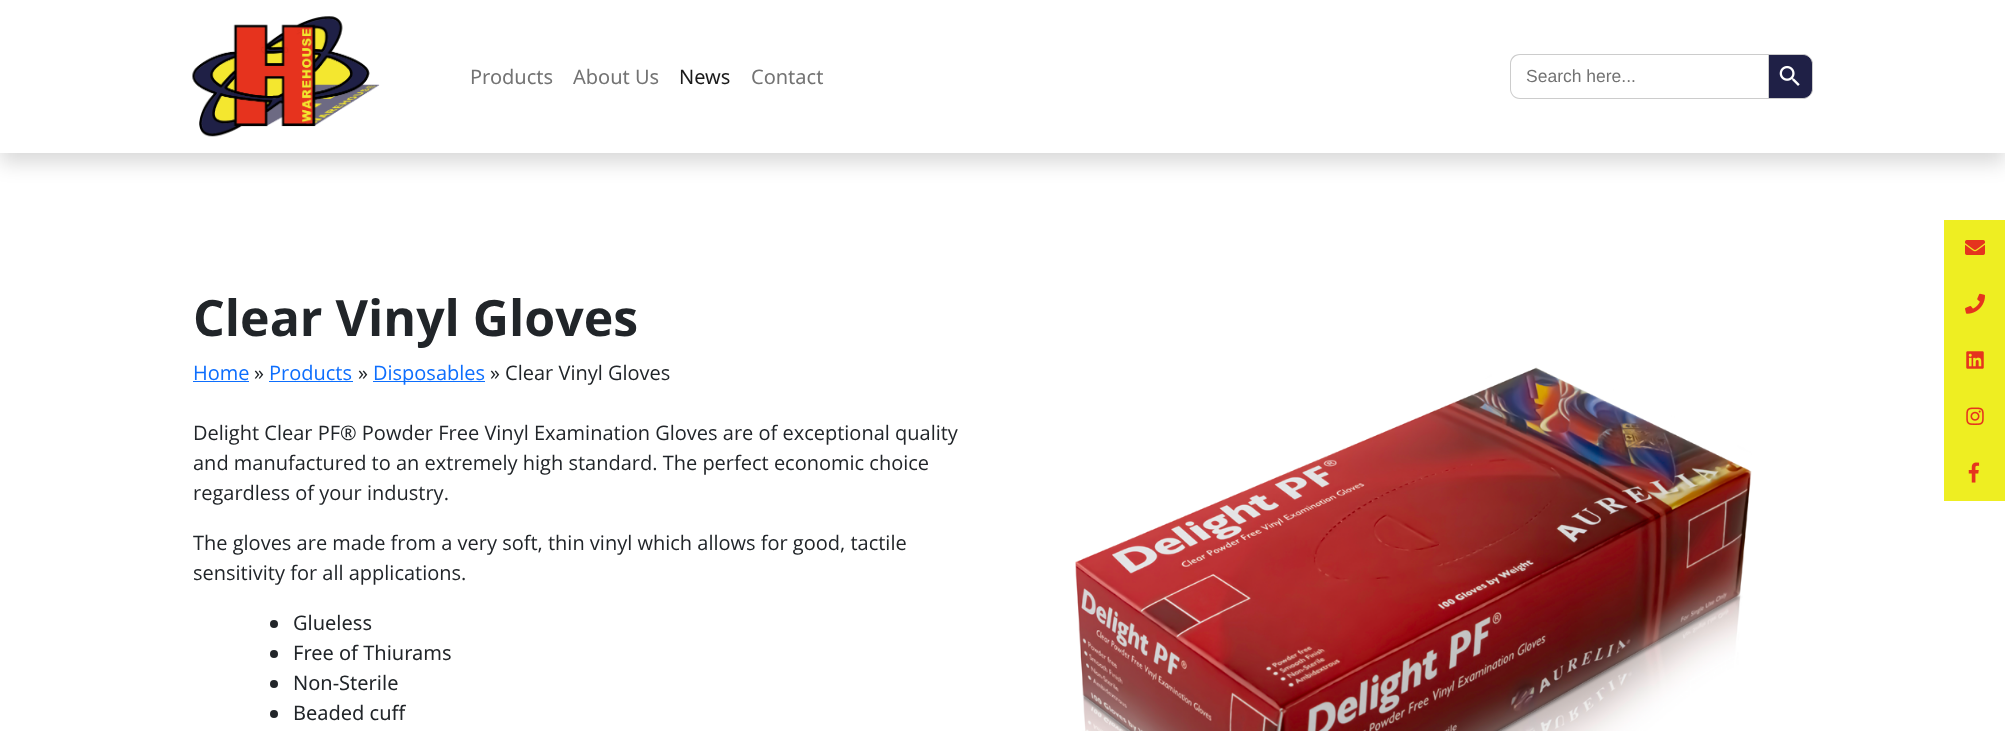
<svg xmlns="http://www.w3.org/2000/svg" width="2005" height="731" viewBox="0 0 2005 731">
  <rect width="100%" height="100%" fill="#fff"/>
  <path d="M0 10h2005v153H0z" fill="#00000026" filter="blur(10px)"/>
  <path d="M0 0h2005v153H0z" fill="#fff"/>
  <image x="192" y="16" width="188" height="121" href="img/1.png"/>
  <path d="M1520 54H1768V99H1520C1514 99 1510 94 1510 89V64C1510 58 1514 54 1520 54ZM1520 55H1768V98H1520C1515 98 1511 94 1511 89V64C1511 59 1515 55 1520 55Z" fill="#ccc" fill-rule="evenodd"/>
  <path d="M1768.5 54.5H1803C1808 54.5 1812.5 59 1812.5 64V89C1812.5 94 1808 98.5 1803 98.5H1768.5Z" fill="#1f2046" stroke="#ccc"/>
  <image x="1779" y="65" width="21" height="21" href="img/2.png"/>
  <path d="M193 381h56v1H193z" fill="#0d6efd"/>
  <path d="M269 381h84v1H269z" fill="#0d6efd"/>
  <path d="M373 381h112v1H373z" fill="#0d6efd"/>
  <circle cx="274" cy="624" r="4" fill="#212529"/>
  <circle cx="274" cy="654" r="4" fill="#212529"/>
  <circle cx="274" cy="684" r="4" fill="#212529"/>
  <circle cx="274" cy="714" r="4" fill="#212529"/>
  <image x="1075" y="367" width="677" height="364" href="img/3.png"/>
  <path d="M1944 220h61v281H1944z" fill="#ee2"/>
  <image x="1965" y="240" width="20" height="15" href="img/4.png"/>
  <image x="1965" y="293" width="20" height="21" href="img/5.png"/>
  <image x="1966" y="351" width="18" height="18" href="img/6.png"/>
  <image x="1966" y="407" width="18" height="18" href="img/7.png"/>
  <image x="1968" y="462" width="12" height="21" href="img/8.png"/>
  <g font-family="Noto Sans" font-size="20" fill="#737373">
    <text x="470" y="84">Products</text>
    <text x="573" y="84">About Us</text>
  </g>
  <text x="679" y="84" font-family="Noto Sans" font-size="20" fill="#1a1a1a">News</text>
  <text x="751" y="84" font-family="Noto Sans" font-size="20" fill="#737373">Contact</text>
  <text x="1526" y="82" font-family="Liberation Sans" font-size="17.5" fill="#737373">Search here...</text>
  <text x="193" y="336" font-family="Open Sans" font-size="50" font-weight="bold" fill="#212529">Clear Vinyl Gloves</text>
  <text x="193" y="380" font-family="Open Sans" font-size="20" fill="#0d6efd">Home</text>
  <text x="254" y="380" font-family="Open Sans" font-size="20" fill="#212529">»</text>
  <text x="269" y="380" font-family="Open Sans" font-size="20" fill="#0d6efd">Products</text>
  <text x="358" y="380" font-family="Open Sans" font-size="20" fill="#212529">»</text>
  <text x="373" y="380" font-family="Open Sans" font-size="20" fill="#0d6efd">Disposables</text>
  <g font-family="Open Sans" font-size="20" fill="#212529">
    <text x="490" y="380">» Clear Vinyl Gloves</text>
    <text x="193" y="440">Delight Clear PF® Powder Free Vinyl Examination Gloves are of exceptional quality</text>
    <text x="193" y="470">and manufactured to an extremely high standard. The perfect economic choice</text>
    <text x="193" y="500">regardless of your industry.</text>
    <text x="193" y="550">The gloves are made from a very soft, thin vinyl which allows for good, tactile</text>
    <text x="193" y="580">sensitivity for all applications.</text>
  </g>
  <g font-family="Noto Sans" font-size="20" fill="#212529">
    <text x="293" y="630">Glueless</text>
    <text x="293" y="660">Free of Thiurams</text>
    <text x="293" y="690">Non-Sterile</text>
    <text x="293" y="720">Beaded cuff</text>
  </g>
</svg>
